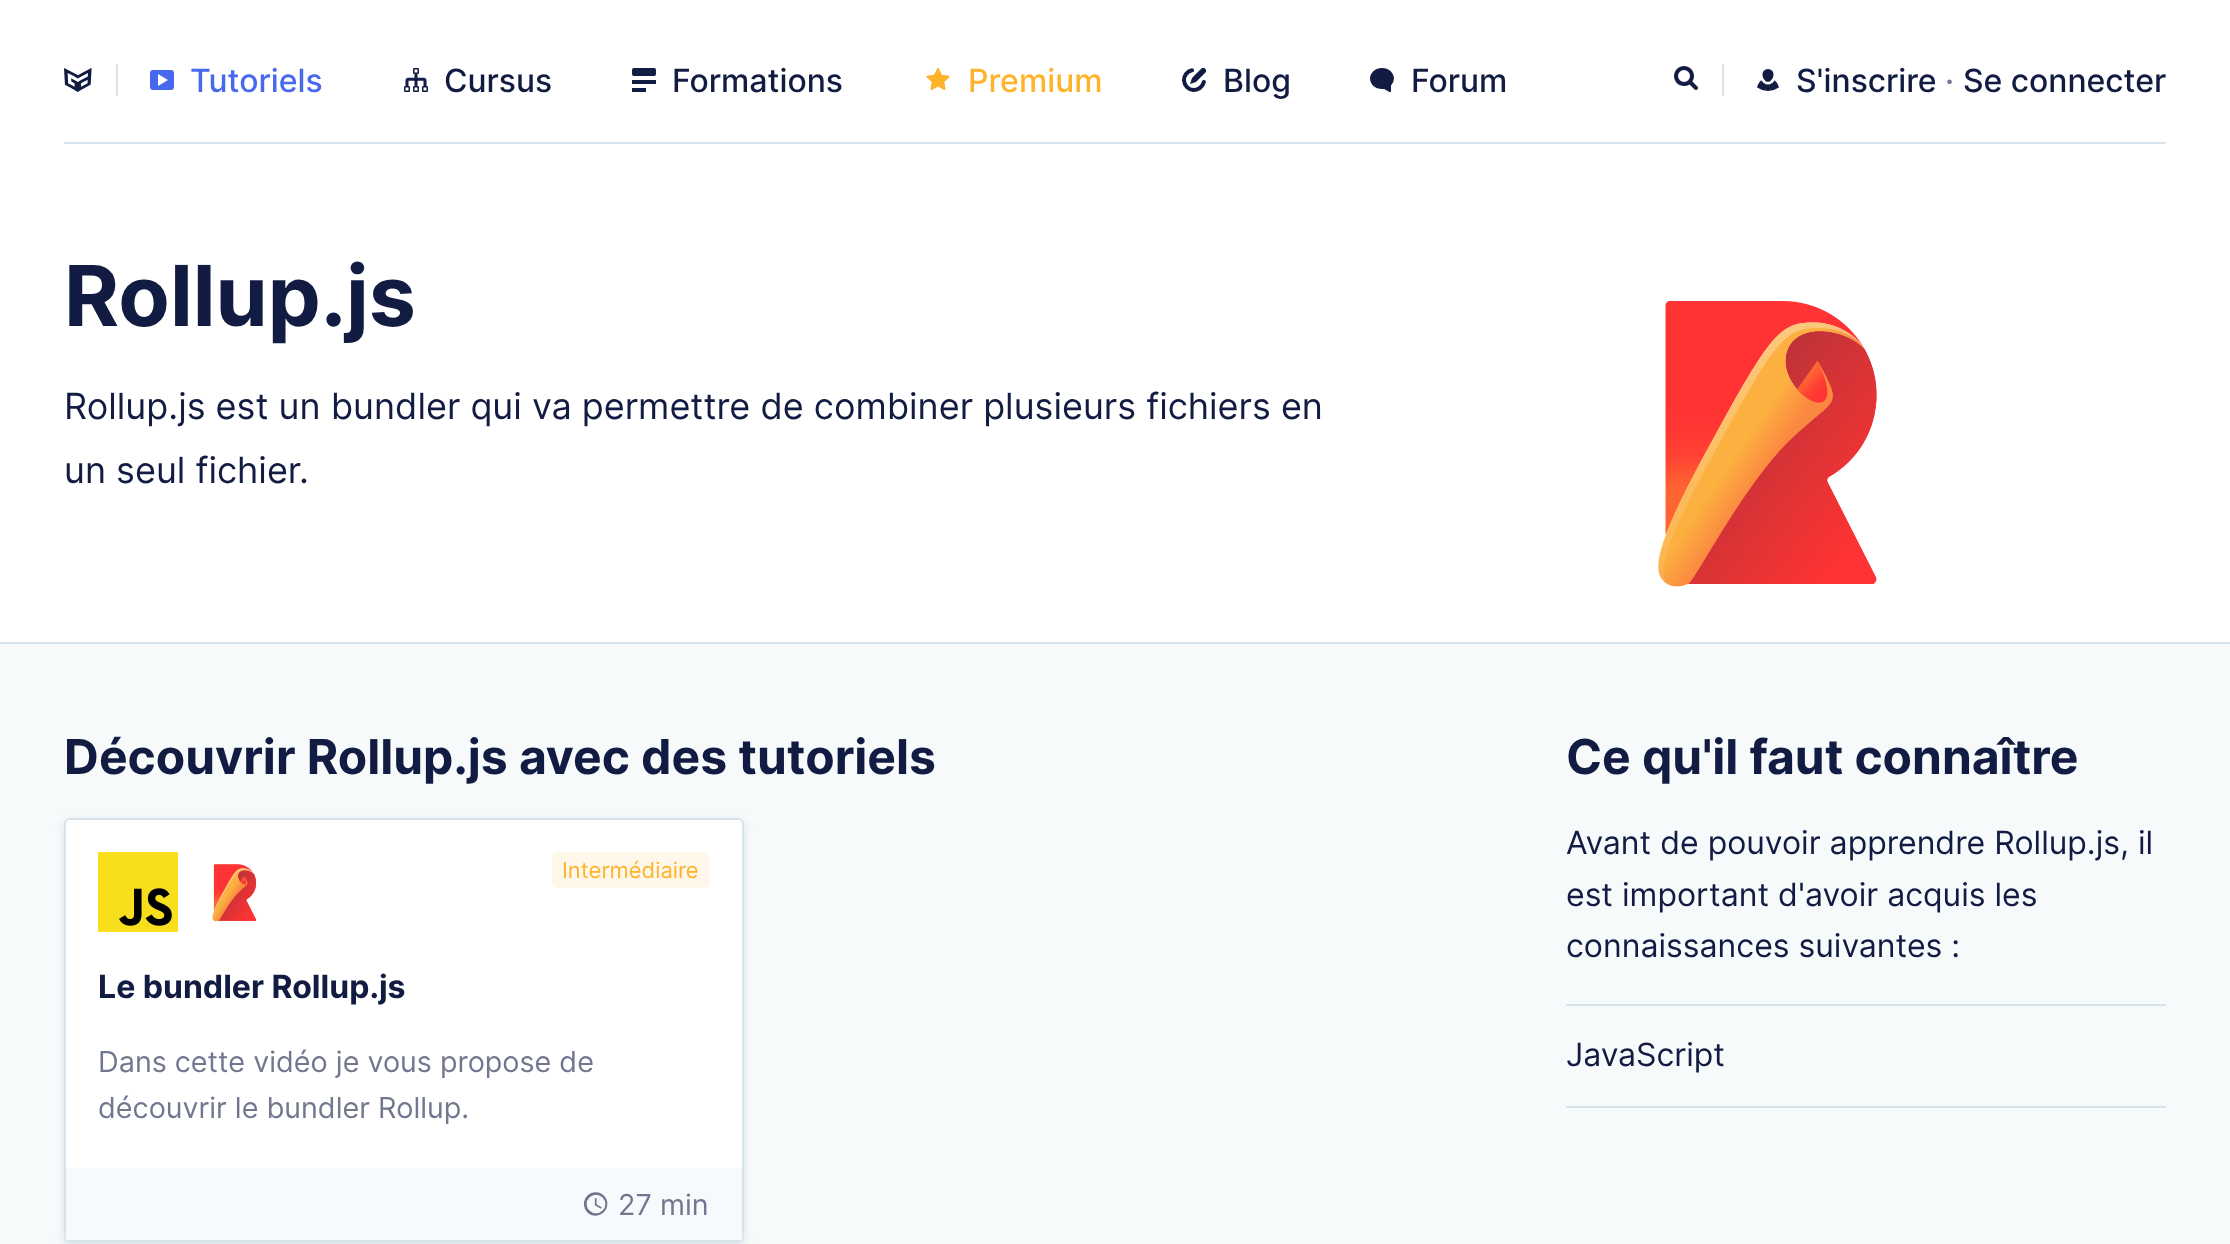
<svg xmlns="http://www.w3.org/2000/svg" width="2230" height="1244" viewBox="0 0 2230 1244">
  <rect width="100%" height="100%" fill="#fff"/>
  <path d="M116 64h2v32H116z" fill="#d5e3ec"/>
  <image x="64" y="68" width="28" height="24" href="img/1.png"/>
  <image x="150" y="70" width="24" height="20" href="img/2.png"/>
  <image x="404" y="68" width="24" height="24" href="img/3.png"/>
  <image x="632" y="68" width="24" height="24" href="img/4.png"/>
  <image x="926" y="67" width="24" height="23" href="img/5.png"/>
  <image x="1182" y="68" width="24" height="24" href="img/6.png"/>
  <image x="1370" y="68" width="24" height="24" href="img/7.png"/>
  <path d="M1722 64h2v32H1722z" fill="#d5e3ec"/>
  <image x="1674" y="66" width="24" height="24" href="img/8.png"/>
  <image x="1757" y="69" width="22" height="22" href="img/9.png"/>
  <path d="M64 142h2102v2H64z" fill="#d5e3ec"/>
  <path d="M0 642h2230v2H0z" fill="#d5e3ec"/>
  <image x="1658" y="301" width="219" height="286" href="img/10.png"/>
  <path d="M0 644h2230v600H0z" fill="#f7fafb"/>
  <rect x="64" y="822" width="680" height="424" rx="6" fill="#d8e1e8" filter="blur(4px)"/>
  <rect x="65" y="819" width="678" height="422" rx="5" fill="#fff" stroke="#d5e3ec" stroke-width="2"/>
  <rect x="552" y="852" width="158" height="36" rx="6" fill="#fff7ea"/>
  <image x="98" y="852" width="80" height="80" href="img/11.png"/>
  <image x="212" y="864" width="45" height="58" href="img/12.png"/>
  <path d="M66 1168h676v72H66z" fill="#f7fafd"/>
  <image x="584" y="1192" width="24" height="24" href="img/13.png"/>
  <path d="M1566 1004h600v2H1566z" fill="#d5e3ec"/>
  <path d="M1566 1106h600v2H1566z" fill="#d5e3ec"/>
  <text x="190" y="92" font-family="Inter" font-size="32" font-weight="500" fill="#4869ee">Tutoriels</text>
  <g font-family="Inter" font-size="32" font-weight="500" fill="#121c42">
    <text x="444" y="92">Cursus</text>
    <text x="672" y="92">Formations</text>
  </g>
  <text x="968" y="92" font-family="Inter" font-size="32" font-weight="500" fill="#feb32b">Premium</text>
  <g font-family="Inter" font-size="32" font-weight="500" fill="#121c42">
    <text x="1223" y="92">Blog</text>
    <text x="1411" y="92">Forum</text>
    <text x="1796" y="92">S'inscrire</text>
  </g>
  <text x="1945" y="92" font-family="Inter" font-size="32" font-weight="500" fill="#71778e">·</text>
  <text x="1963" y="92" font-family="Inter" font-size="32" font-weight="500" fill="#121c42">Se connecter</text>
  <text x="64" y="326" font-family="Inter" font-size="84" font-weight="bold" fill="#121c42">Rollup.js</text>
  <g font-family="Inter" font-size="36" fill="#121c42">
    <text x="64" y="419">Rollup.js est un bundler qui va permettre de combiner plusieurs fichiers en</text>
    <text x="64" y="483">un seul fichier.</text>
  </g>
  <text x="64" y="774" font-family="Inter" font-size="48" font-weight="bold" fill="#121c42">Découvrir Rollup.js avec des tutoriels</text>
  <text x="562" y="878" font-family="Inter" font-size="22" fill="#feb32b">Intermédiaire</text>
  <text x="98" y="998" font-family="Inter" font-size="32" font-weight="bold" fill="#121c42">Le bundler Rollup.js</text>
  <g font-family="Inter" font-size="28.75" fill="#71778e">
    <text x="98" y="1072">Dans cette vidéo je vous propose de</text>
    <text x="98" y="1118">découvrir le bundler Rollup.</text>
    <text x="618" y="1215">27 min</text>
  </g>
  <text x="1566" y="774" font-family="Inter" font-size="48" font-weight="bold" fill="#121c42">Ce qu'il faut connaître</text>
  <g font-family="Inter" font-size="32" fill="#121c42">
    <text x="1566" y="854">Avant de pouvoir apprendre Rollup.js, il</text>
    <text x="1566" y="906">est important d'avoir acquis les</text>
    <text x="1566" y="957">connaissances suivantes :</text>
    <text x="1566" y="1066">JavaScript</text>
  </g>
</svg>
